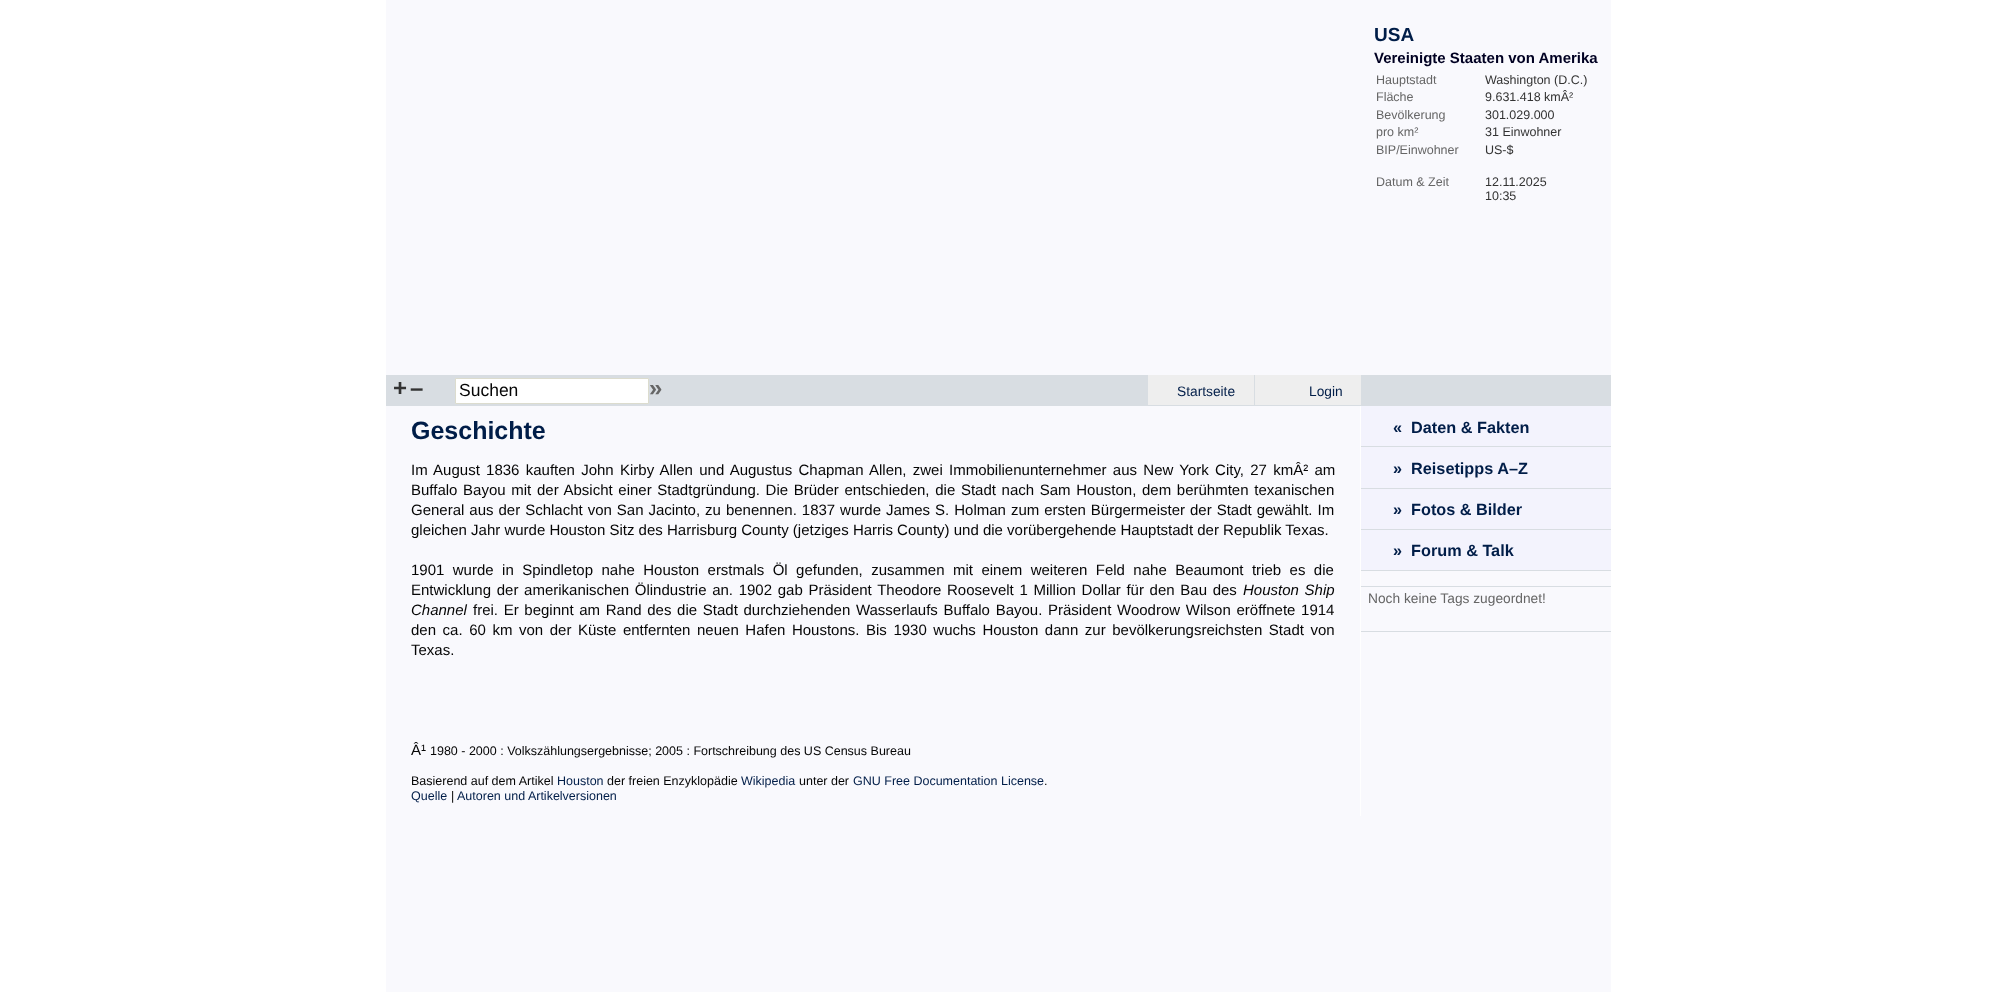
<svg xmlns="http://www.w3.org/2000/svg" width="1997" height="992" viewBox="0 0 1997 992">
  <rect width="100%" height="100%" fill="#fff"/>
  <path d="M386 0h1225v992H386z" fill="#f9f9fd"/>
  <path d="M386 375h1225v31H386z" fill="#d8dde2"/>
  <path d="M455.5 378.5h193v25H455.5z" fill="#fff" stroke="#dcdcce"/>
  <path d="M1148 375h106v30H1148z" fill="#eee"/>
  <path d="M1255 375h106v30H1255z" fill="#eee"/>
  <path d="M1360 406h1v410H1360z" fill="#fff"/>
  <path d="M1361 406h250v82H1361z" fill="#f3f3fd"/>
  <path d="M1361 446h250v1H1361z" fill="#d8dde2"/>
  <path d="M1361 488h250v1H1361z" fill="#d8dde2"/>
  <path d="M1361 489h250v40H1361z" fill="#f3f3fd"/>
  <path d="M1361 529h250v1H1361z" fill="#d8dde2"/>
  <path d="M1361 530h250v40H1361z" fill="#f3f3fd"/>
  <path d="M1361 570h250v1H1361z" fill="#d8dde2"/>
  <path d="M1361 586h250v1H1361z" fill="#d8dde2"/>
  <path d="M1361 631h250v1H1361z" fill="#d8dde2"/>
  <text x="1374" y="41" font-family="Liberation Sans" font-size="19" font-weight="bold" fill="#001d48">USA</text>
  <text x="1374" y="63" font-family="Liberation Sans" font-size="15" font-weight="bold" fill="#002">Vereinigte Staaten von Amerika</text>
  <text x="1376" y="84" font-family="Liberation Sans" font-size="12.5" fill="#666">Hauptstadt</text>
  <text x="1485" y="84" font-family="Liberation Sans" font-size="12.5" fill="#333">Washington (D.C.)</text>
  <text x="1376" y="101" font-family="Liberation Sans" font-size="12.5" fill="#666">Fläche</text>
  <text x="1485" y="101" font-family="Liberation Sans" font-size="12.5" fill="#333">9.631.418 kmÂ²</text>
  <text x="1376" y="119" font-family="Liberation Sans" font-size="12.5" fill="#666">Bevölkerung</text>
  <text x="1485" y="119" font-family="Liberation Sans" font-size="12.5" fill="#333">301.029.000</text>
  <text x="1376" y="136" font-family="Liberation Sans" font-size="12.5" fill="#666">pro km²</text>
  <text x="1485" y="136" font-family="Liberation Sans" font-size="12.5" fill="#333">31 Einwohner</text>
  <text x="1376" y="154" font-family="Liberation Sans" font-size="12.5" fill="#666">BIP/Einwohner</text>
  <text x="1485" y="154" font-family="Liberation Sans" font-size="12.5" fill="#333">US-$</text>
  <text x="1376" y="186" font-family="Liberation Sans" font-size="12.5" fill="#666">Datum &amp; Zeit</text>
  <g font-family="Liberation Sans" font-size="12.5" fill="#333">
    <text x="1485" y="186">12.11.2025</text>
    <text x="1485" y="200">10:35</text>
  </g>
  <g font-family="Liberation Sans" font-size="24" font-weight="bold" fill="#333">
    <text x="393" y="396">+</text>
    <text x="410" y="396">–</text>
  </g>
  <text x="459" y="396" font-family="Liberation Sans" font-size="17.5" fill="#050505">Suchen</text>
  <text x="649" y="396" font-family="Liberation Sans" font-size="24" font-weight="bold" fill="#666">»</text>
  <g font-family="Liberation Sans" font-size="13.75" fill="#001d48">
    <text x="1177" y="396">Startseite</text>
    <text x="1309" y="396">Login</text>
  </g>
  <text x="411" y="439" font-family="Liberation Sans" font-size="25" font-weight="bold" fill="#001d48">Geschichte</text>
  <g font-family="Liberation Sans" font-size="15" fill="#050505">
    <text x="411" y="475" word-spacing="2.1">Im August 1836 kauften John Kirby Allen und Augustus Chapman Allen, zwei Immobilienunternehmer aus New York City, 27 kmÂ² am</text>
    <text x="411" y="495" word-spacing="1.5">Buffalo Bayou mit der Absicht einer Stadtgründung. Die Brüder entschieden, die Stadt nach Sam Houston, dem berühmten texanischen</text>
    <text x="411" y="515" word-spacing="0.8">General aus der Schlacht von San Jacinto, zu benennen. 1837 wurde James S. Holman zum ersten Bürgermeister der Stadt gewählt. Im</text>
    <text x="411" y="535">gleichen Jahr wurde Houston Sitz des Harrisburg County (jetziges Harris County) und die vorübergehende Hauptstadt der Republik Texas.</text>
    <text x="411" y="575" word-spacing="4.25">1901 wurde in Spindletop nahe Houston erstmals Öl gefunden, zusammen mit einem weiteren Feld nahe Beaumont trieb es die</text>
    <text x="411" y="595" word-spacing="1.5">Entwicklung der amerikanischen Ölindustrie an. 1902 gab Präsident Theodore Roosevelt 1 Million Dollar für den Bau des</text>
  </g>
  <g font-family="Liberation Sans" font-size="15" font-style="italic" fill="#050505">
    <text x="1243" y="595" word-spacing="1.5">Houston Ship</text>
    <text x="411" y="615">Channel</text>
  </g>
  <g font-family="Liberation Sans" font-size="15" fill="#050505">
    <text x="473" y="615" word-spacing="1.5">frei. Er beginnt am Rand des die Stadt durchziehenden Wasserlaufs Buffalo Bayou. Präsident Woodrow Wilson eröffnete 1914</text>
    <text x="411" y="635" word-spacing="2.4">den ca. 60 km von der Küste entfernten neuen Hafen Houstons. Bis 1930 wuchs Houston dann zur bevölkerungsreichsten Stadt von</text>
    <text x="411" y="655">Texas.</text>
    <text x="411" y="755">Â¹</text>
  </g>
  <g font-family="Liberation Sans" font-size="12.5" fill="#050505">
    <text x="430" y="755">1980 - 2000 : Volkszählungsergebnisse; 2005 : Fortschreibung des US Census Bureau</text>
    <text x="411" y="785">Basierend auf dem Artikel</text>
  </g>
  <text x="557" y="785" font-family="Liberation Sans" font-size="12.5" fill="#001d48">Houston</text>
  <text x="607" y="785" font-family="Liberation Sans" font-size="12.5" fill="#050505">der freien Enzyklopädie</text>
  <text x="741" y="785" font-family="Liberation Sans" font-size="12.5" fill="#001d48">Wikipedia</text>
  <text x="799" y="785" font-family="Liberation Sans" font-size="12.5" fill="#050505">unter der</text>
  <text x="853" y="785" font-family="Liberation Sans" font-size="12.5" fill="#001d48">GNU Free Documentation License</text>
  <text x="1044" y="785" font-family="Liberation Sans" font-size="12.5" fill="#050505">.</text>
  <text x="411" y="800" font-family="Liberation Sans" font-size="12.5" fill="#001d48">Quelle</text>
  <text x="451" y="800" font-family="Liberation Sans" font-size="12.5" fill="#050505">|</text>
  <text x="457" y="800" font-family="Liberation Sans" font-size="12.5" fill="#001d48">Autoren und Artikelversionen</text>
  <g font-family="Liberation Sans" font-size="16.25" font-weight="bold" fill="#001d48">
    <text x="1393" y="433" xml:space="preserve">«  Daten &amp; Fakten</text>
    <text x="1393" y="474" xml:space="preserve">»  Reisetipps A–Z</text>
    <text x="1393" y="515" xml:space="preserve">»  Fotos &amp; Bilder</text>
    <text x="1393" y="556" xml:space="preserve">»  Forum &amp; Talk</text>
  </g>
  <text x="1368" y="603" font-family="Liberation Sans" font-size="13.75" fill="#666">Noch keine Tags zugeordnet!</text>
</svg>
